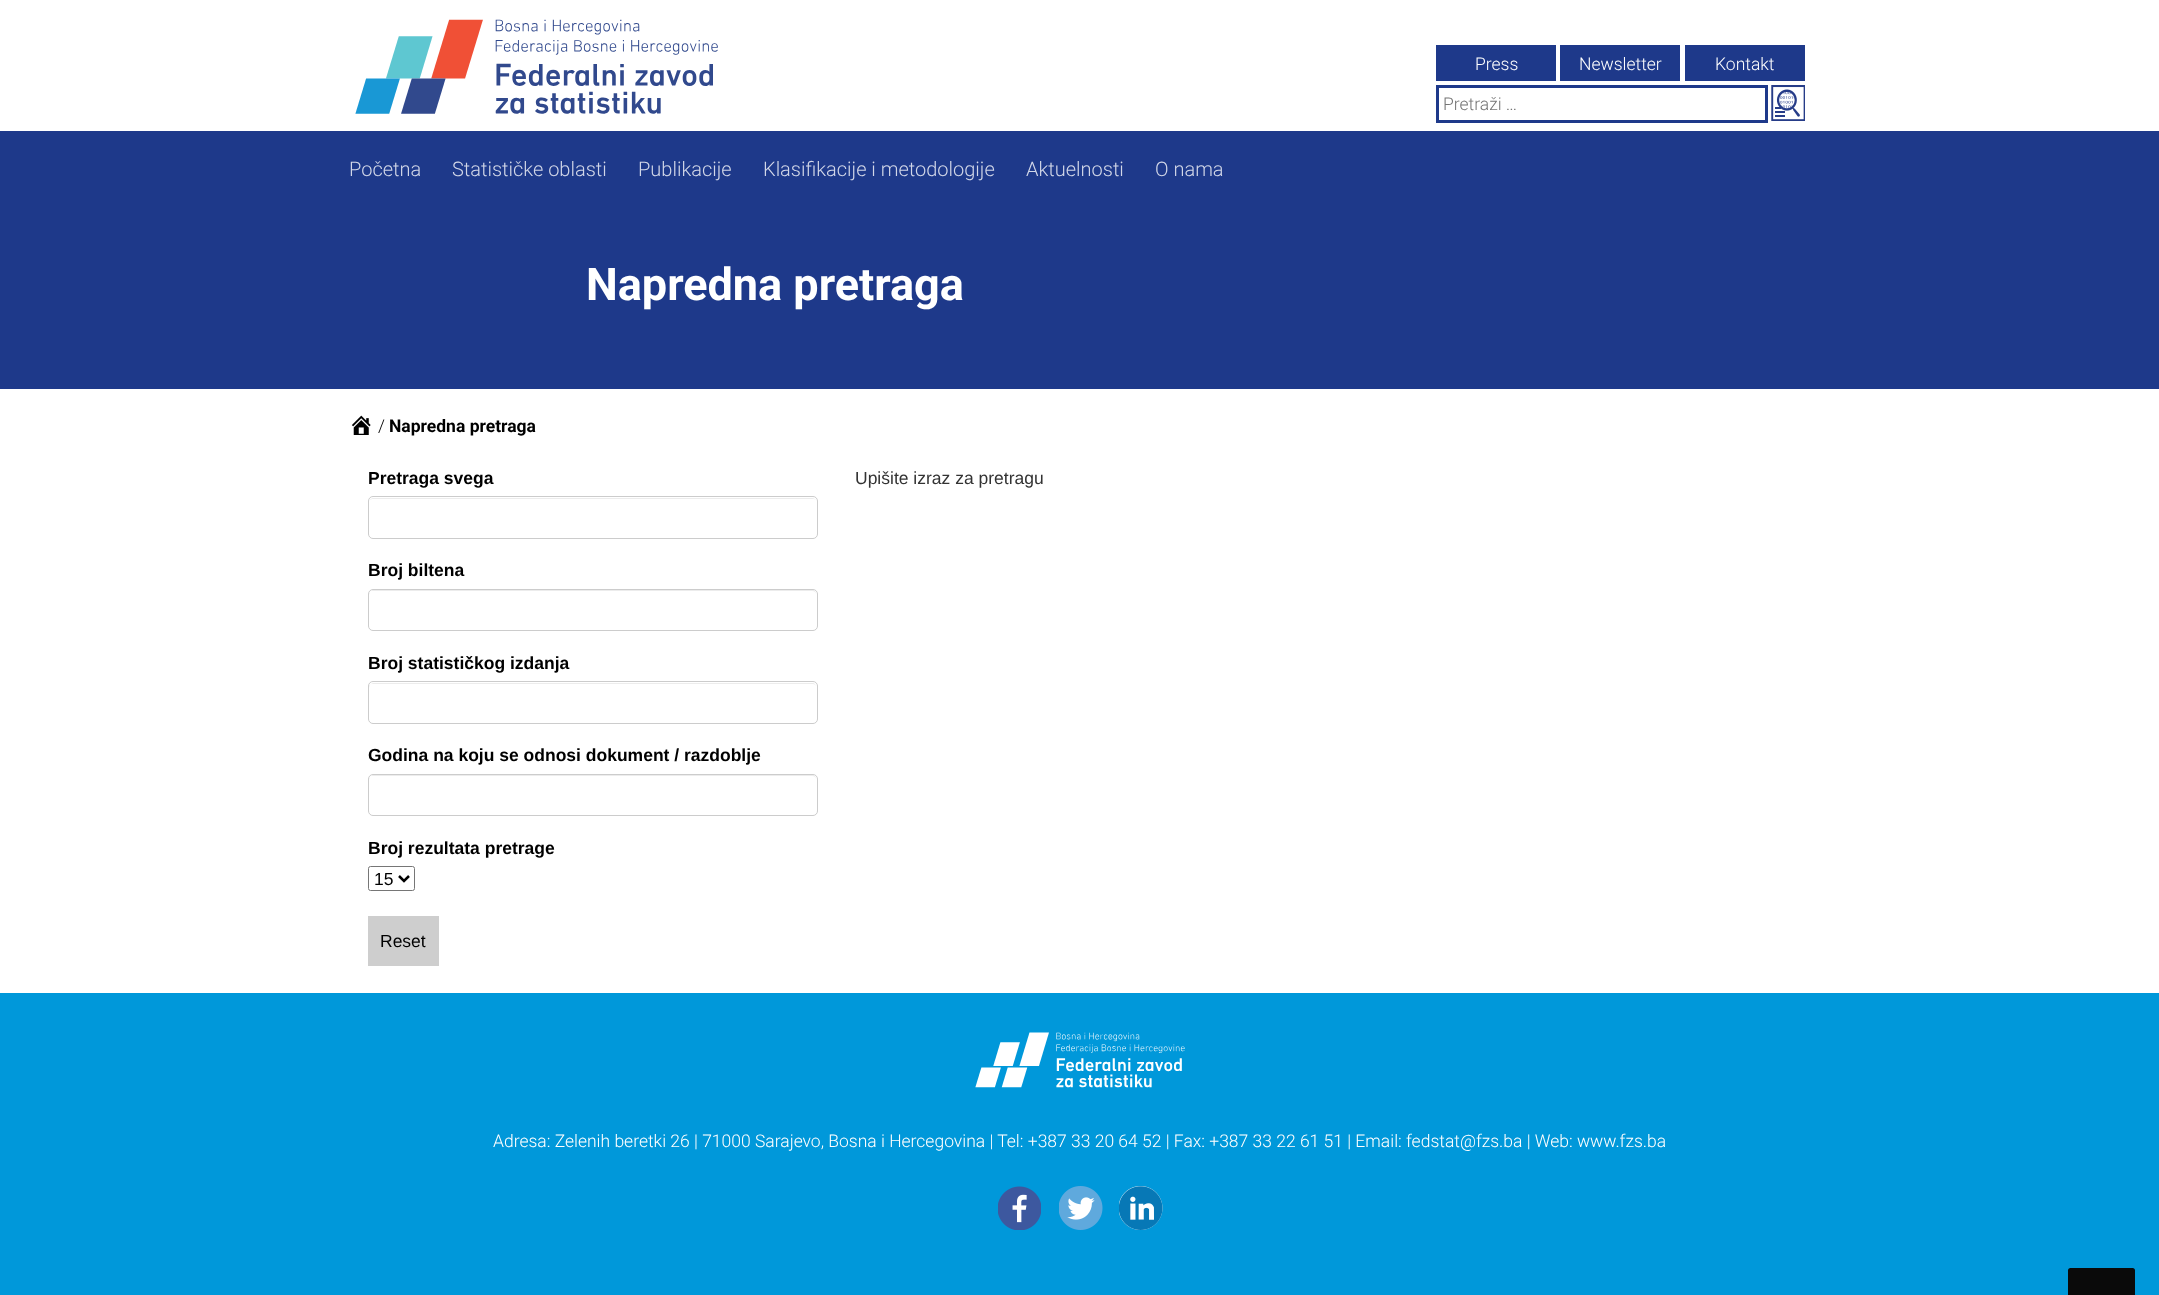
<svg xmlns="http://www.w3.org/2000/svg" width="2159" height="1295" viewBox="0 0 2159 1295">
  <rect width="100%" height="100%" fill="#fff"/>
  <image x="355" y="19" width="363" height="95" href="img/1.png"/>
  <path d="M1436 45h120v36H1436z" fill="#1e398a"/>
  <path d="M1560 45h120v36H1560z" fill="#1e398a"/>
  <path d="M1685 45h120v36H1685z" fill="#1e398a"/>
  <path d="M1437.5 86.5h329v35H1437.5z" fill="none" stroke="#1e398a" stroke-width="3"/>
  <image x="1771" y="85" width="34" height="36" href="img/2.png"/>
  <path d="M0 131h2159v258H0z" fill="#1e398a"/>
  <image x="351" y="415" width="20" height="20" href="img/3.png"/>
  <path d="M372 499H814L816 500C815 499 814 498 812 498H373C372 498 370 499 370 500Z" fill="#ececec"/>
  <rect x="368.5" y="496.5" width="449" height="42" rx="4.5" fill="none" stroke="#ccc"/>
  <path d="M372 591H812C815 591 816 593 816 595C816 592 815 590 812 590H373L371 591L370 592L369 595C369 593 370 591 372 591Z" fill="#ececec"/>
  <rect x="368.5" y="589.5" width="449" height="41" rx="4.5" fill="none" stroke="#ccc"/>
  <path d="M372 684H812C815 684 816 685 816 688C816 685 815 683 812 683H373L371 684L370 685L369 688C369 685 370 684 372 684Z" fill="#ececec"/>
  <rect x="368.5" y="681.5" width="449" height="42" rx="4.5" fill="none" stroke="#ccc"/>
  <path d="M372 776H812C815 776 816 778 816 780C816 777 815 775 812 775H373L371 776L370 777L369 780C369 778 370 776 372 776Z" fill="#ececec"/>
  <rect x="368.5" y="774.5" width="449" height="41" rx="4.5" fill="none" stroke="#ccc"/>
  <rect x="368.5" y="866.5" width="46" height="24" rx="2" fill="none" stroke="#767676"/>
  <path d="M399 876L404 881L409 876" fill="none" stroke="#000" stroke-width="2.5"/>
  <path d="M368 916h71v50H368z" fill="#cecece"/>
  <path d="M0 993h2159v302H0z" fill="#0098da"/>
  <image x="975" y="1032" width="210" height="56" href="img/4.png"/>
  <image x="998" y="1186" width="43" height="44" href="img/5.png"/>
  <image x="1059" y="1186" width="44" height="44" href="img/6.png"/>
  <image x="1119" y="1186" width="44" height="44" href="img/7.png"/>
  <rect x="2068" y="1268" width="67" height="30" rx="2.5" fill="#0a0a0a"/>
  <g font-family="Roboto" font-size="17.5" font-weight="300" fill="#fff">
    <text x="1475" y="70">Press</text>
    <text x="1579" y="70">Newsletter</text>
    <text x="1715" y="70">Kontakt</text>
  </g>
  <text x="1443" y="110" font-family="Roboto" font-size="17.5" font-weight="300" fill="#757575">Pretraži …</text>
  <g font-family="Roboto" font-size="20" font-weight="300" fill="#d2d7e8">
    <text x="349" y="176">Početna</text>
    <text x="452" y="176">Statističke oblasti</text>
    <text x="638" y="176">Publikacije</text>
    <text x="763" y="176">Klasifikacije i metodologije</text>
    <text x="1026" y="176">Aktuelnosti</text>
    <text x="1155" y="176">O nama</text>
  </g>
  <text x="586" y="300" font-family="Roboto" font-size="45" font-weight="bold" fill="#fff">Napredna pretraga</text>
  <text x="378" y="432" font-family="Roboto" font-size="17.5" font-weight="300" fill="#000">/</text>
  <text x="389" y="432" font-family="Roboto" font-size="17.5" font-weight="bold" fill="#000">Napredna pretraga</text>
  <g font-family="Liberation Sans" font-size="17.5" font-weight="bold" fill="#000">
    <text x="368" y="484">Pretraga svega</text>
    <text x="368" y="576">Broj biltena</text>
    <text x="368" y="669">Broj statističkog izdanja</text>
    <text x="368" y="761">Godina na koju se odnosi dokument / razdoblje</text>
    <text x="368" y="854">Broj rezultata pretrage</text>
  </g>
  <g font-family="Liberation Sans" font-size="17.5" fill="#000">
    <text x="374" y="885">15</text>
    <text x="380" y="947">Reset</text>
  </g>
  <text x="855" y="484" font-family="Liberation Sans" font-size="17.5" fill="#333">Upišite izraz za pretragu</text>
  <text x="493" y="1147" font-family="Roboto" font-size="17.5" font-weight="300" fill="#fff">Adresa: Zelenih beretki 26 | 71000 Sarajevo, Bosna i Hercegovina | Tel: +387 33 20 64 52 | Fax: +387 33 22 61 51 | Email: fedstat@fzs.ba | Web: www.fzs.ba</text>
</svg>
